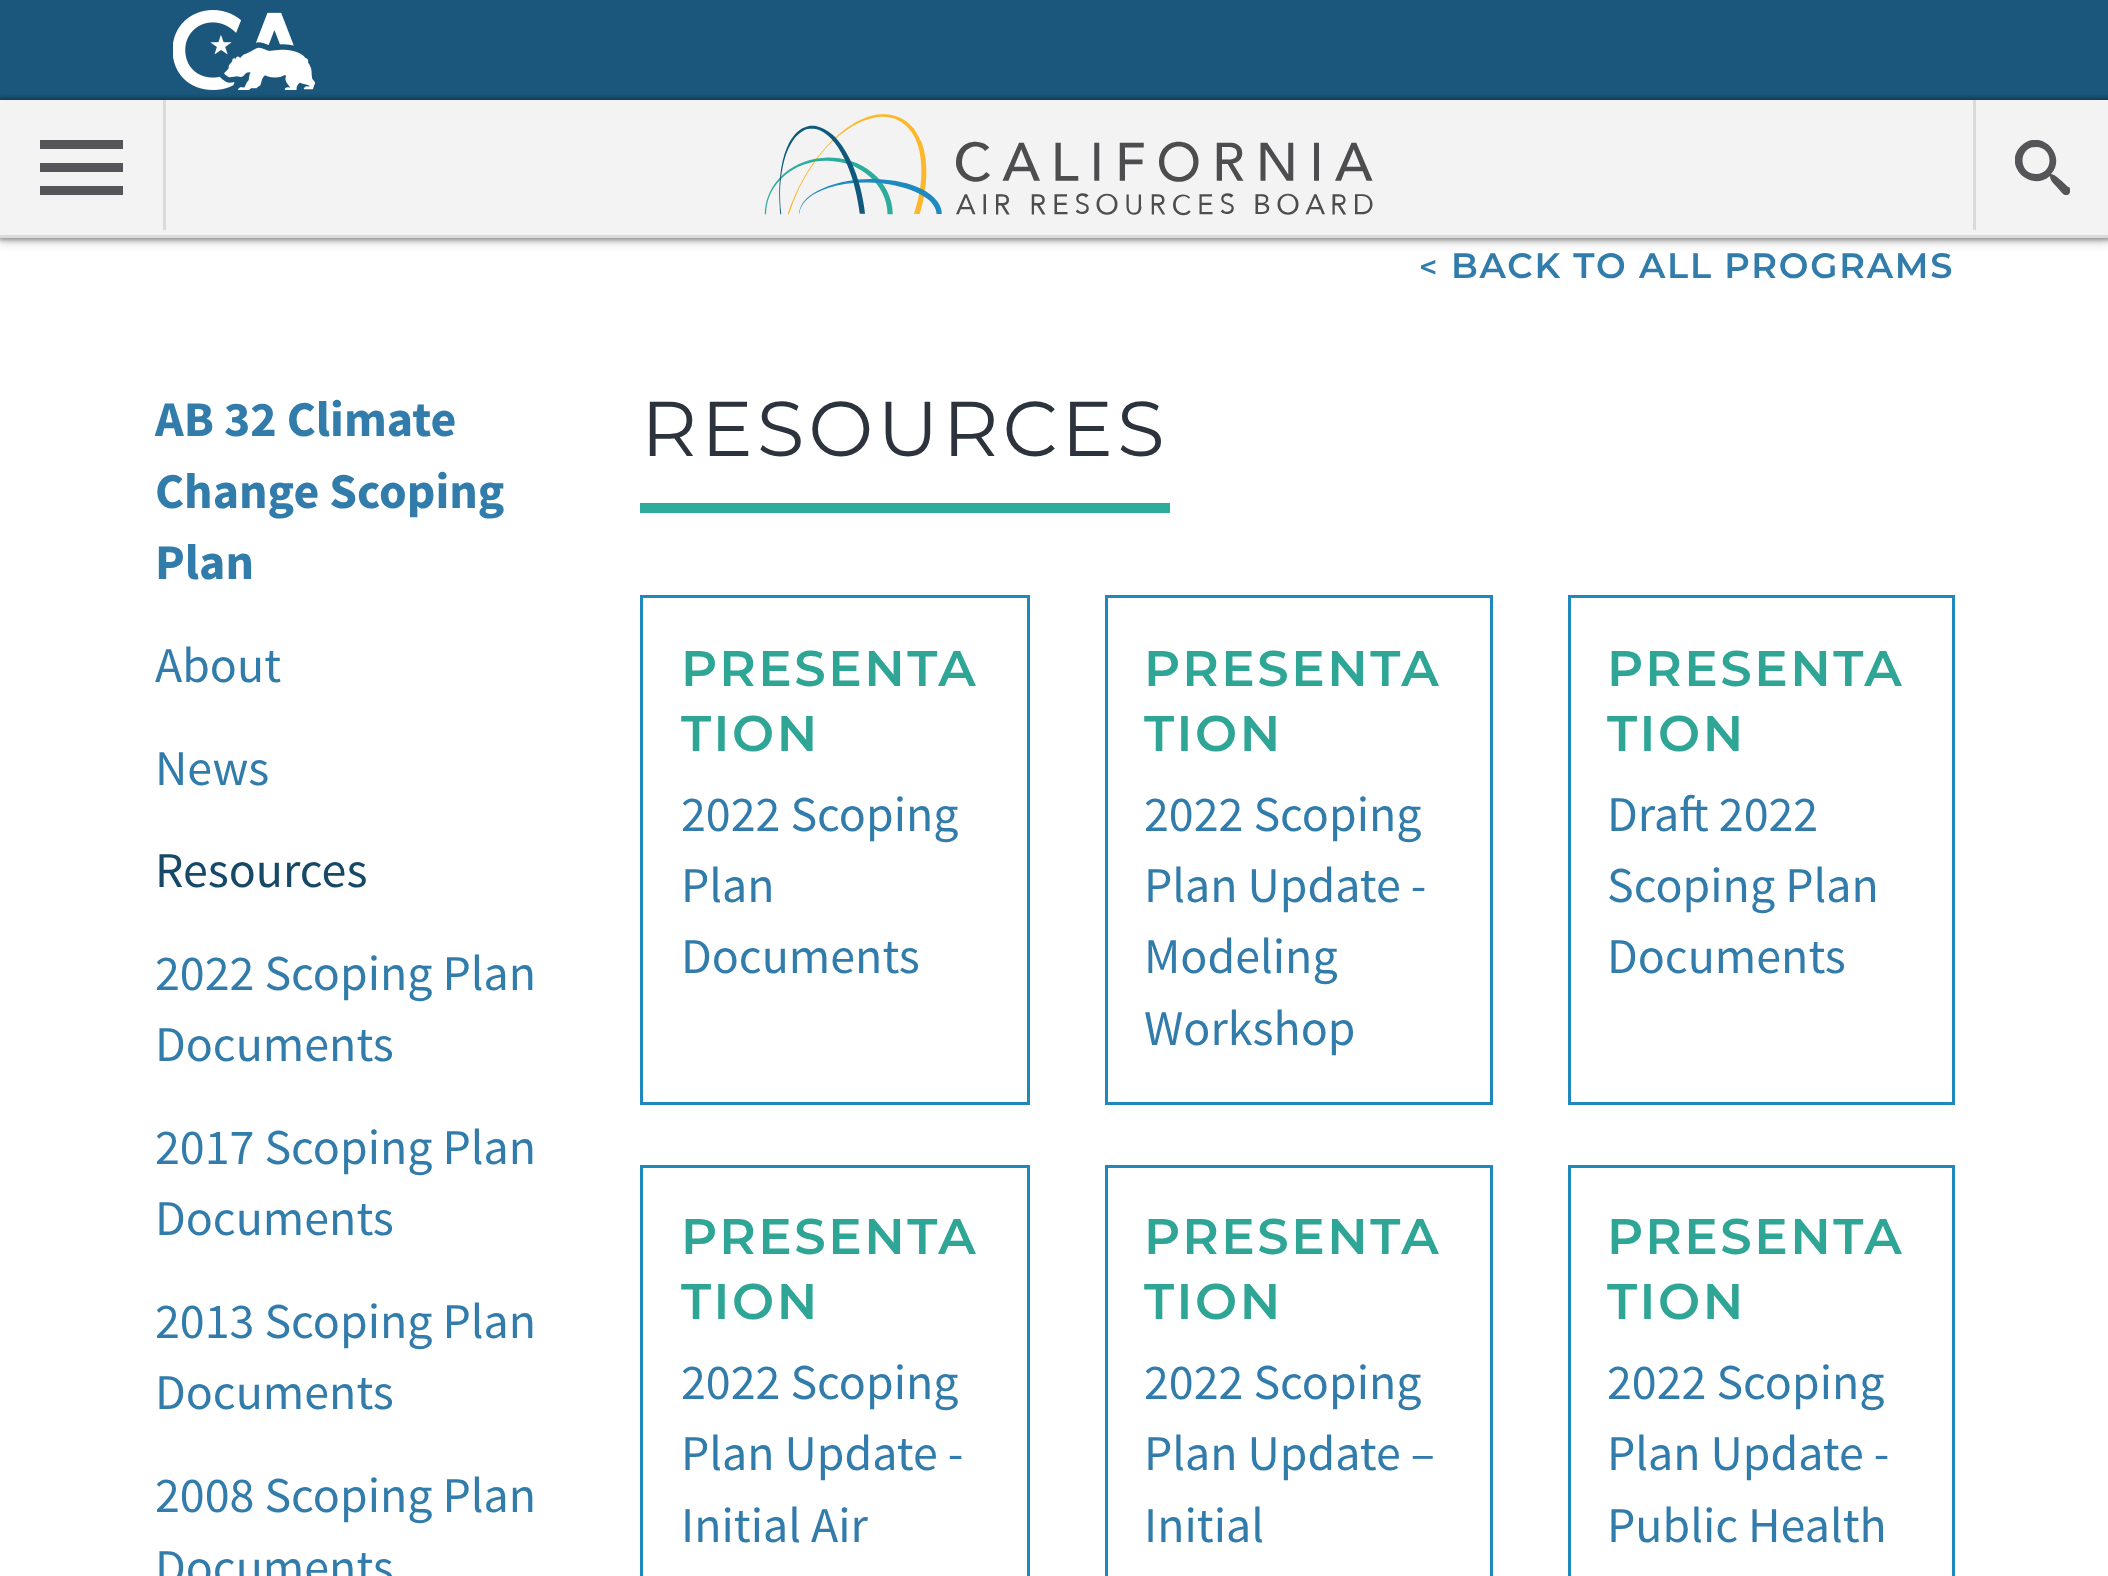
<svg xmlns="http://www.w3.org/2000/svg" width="2108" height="1576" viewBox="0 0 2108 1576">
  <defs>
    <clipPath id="clip1"><path d="M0 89H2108V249H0ZM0 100H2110V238H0Z" clip-rule="evenodd"/></clipPath>
    <clipPath id="clip2"><path d="M2015 140h55v55H2015z"/></clipPath>
  </defs>
  <rect width="100%" height="100%" fill="#fff"/>
  <path d="M0 8h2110v237H0z" fill="#0000001a" filter="blur(4px)"/>
  <path d="M0 100h2108v135H0z" fill="#fff"/>
  <path d="M0 0h2108v100H0z" fill="#1b577d"/>
  <g clip-path="url(#clip1)">
    <path d="M-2 98h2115v142H-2z" fill="#00000066" filter="blur(2.5px)"/>
  </g>
  <image x="173" y="10" width="142" height="80" href="img/1.png"/>
  <path d="M0 100h2108v135H0z" fill="#f3f3f3fa"/>
  <path d="M0 235h2108v3H0z" fill="#dadada"/>
  <path d="M163 100h3v130H163z" fill="#dadada"/>
  <path d="M40 195H123V186H40ZM40 172H123V163H40ZM40 140V149H123V140Z" fill="#555559"/>
  <image x="764" y="114" width="609" height="102" href="img/2.png"/>
  <path d="M1973 100h3v130H1973z" fill="#dadada"/>
  <g clip-path="url(#clip2)">
    <path d="M2068 187C2065 184 2055 174 2051 174C2068 155 2040 127 2021 146C2002 165 2030 193 2050 176C2050 180 2053 183 2055 185L2063 194C2068 198 2073 191 2069 187ZM2036 174C2018 174 2018 147 2036 147C2054 147 2054 174 2036 174Z" fill="#555559"/>
  </g>
  <path d="M640 503h530v10H640z" fill="#2eac9b"/>
  <path d="M641.5 596.5h387v507H641.5z" fill="none" stroke="#1f89bd" stroke-width="3"/>
  <path d="M1106.5 596.5h385v507H1106.5z" fill="none" stroke="#1f89bd" stroke-width="3"/>
  <path d="M1569.5 596.5h384v507H1569.5z" fill="none" stroke="#1f89bd" stroke-width="3"/>
  <path d="M641.5 1166.5h387v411H641.5z" fill="none" stroke="#1f89bd" stroke-width="3"/>
  <path d="M1106.5 1166.5h385v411H1106.5z" fill="none" stroke="#1f89bd" stroke-width="3"/>
  <path d="M1569.5 1166.5h384v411H1569.5z" fill="none" stroke="#1f89bd" stroke-width="3"/>
  <text x="1419" y="278" font-family="Montserrat" font-size="31" font-weight="600" letter-spacing="1.75" fill="#327cac">&lt;</text>
  <text x="1451" y="278" font-family="Montserrat" font-size="35.25" font-weight="600" letter-spacing="1.75" fill="#327cac">BACK TO ALL PROGRAMS</text>
  <g font-family="Source Sans Pro" font-size="50" font-weight="bold" fill="#327cac">
    <text x="155" y="436">AB 32 Climate</text>
    <text x="155" y="508">Change Scoping</text>
    <text x="155" y="579">Plan</text>
  </g>
  <g font-family="Source Sans Pro" font-size="50" fill="#327cac">
    <text x="155" y="682">About</text>
    <text x="155" y="785">News</text>
  </g>
  <text x="155" y="887" font-family="Source Sans Pro" font-size="50" fill="#164868">Resources</text>
  <g font-family="Source Sans Pro" font-size="50" fill="#327cac">
    <text x="155" y="990">2022 Scoping Plan</text>
    <text x="155" y="1061">Documents</text>
    <text x="155" y="1164">2017 Scoping Plan</text>
    <text x="155" y="1235">Documents</text>
    <text x="155" y="1338">2013 Scoping Plan</text>
    <text x="155" y="1409">Documents</text>
    <text x="155" y="1512">2008 Scoping Plan</text>
    <text x="155" y="1584">Documents</text>
  </g>
  <text x="641" y="456" font-family="Montserrat" font-size="77.5" letter-spacing="3.9" fill="#2d333d">RESOURCES</text>
  <g font-family="Montserrat" font-size="50" font-weight="600" letter-spacing="2.5" fill="#2fa596">
    <text x="681" y="686">PRESENTA</text>
    <text x="681" y="751">TION</text>
  </g>
  <g font-family="Source Sans Pro" font-size="50" fill="#327cac">
    <text x="681" y="831">2022 Scoping</text>
    <text x="681" y="902">Plan</text>
    <text x="681" y="973">Documents</text>
  </g>
  <g font-family="Montserrat" font-size="50" font-weight="600" letter-spacing="2.5" fill="#2fa596">
    <text x="1144" y="686">PRESENTA</text>
    <text x="1144" y="751">TION</text>
  </g>
  <g font-family="Source Sans Pro" font-size="50" fill="#327cac">
    <text x="1144" y="831">2022 Scoping</text>
    <text x="1144" y="902">Plan Update -</text>
    <text x="1144" y="973">Modeling</text>
    <text x="1144" y="1045">Workshop</text>
  </g>
  <g font-family="Montserrat" font-size="50" font-weight="600" letter-spacing="2.5" fill="#2fa596">
    <text x="1607" y="686">PRESENTA</text>
    <text x="1607" y="751">TION</text>
  </g>
  <g font-family="Source Sans Pro" font-size="50" fill="#327cac">
    <text x="1607" y="831">Draft 2022</text>
    <text x="1607" y="902">Scoping Plan</text>
    <text x="1607" y="973">Documents</text>
  </g>
  <g font-family="Montserrat" font-size="50" font-weight="600" letter-spacing="2.5" fill="#2fa596">
    <text x="681" y="1254">PRESENTA</text>
    <text x="681" y="1319">TION</text>
  </g>
  <g font-family="Source Sans Pro" font-size="50" fill="#327cac">
    <text x="681" y="1399">2022 Scoping</text>
    <text x="681" y="1470">Plan Update -</text>
    <text x="681" y="1542">Initial Air</text>
  </g>
  <g font-family="Montserrat" font-size="50" font-weight="600" letter-spacing="2.5" fill="#2fa596">
    <text x="1144" y="1254">PRESENTA</text>
    <text x="1144" y="1319">TION</text>
  </g>
  <g font-family="Source Sans Pro" font-size="50" fill="#327cac">
    <text x="1144" y="1399">2022 Scoping</text>
    <text x="1144" y="1470">Plan Update –</text>
    <text x="1144" y="1542">Initial</text>
  </g>
  <g font-family="Montserrat" font-size="50" font-weight="600" letter-spacing="2.5" fill="#2fa596">
    <text x="1607" y="1254">PRESENTA</text>
    <text x="1607" y="1319">TION</text>
  </g>
  <g font-family="Source Sans Pro" font-size="50" fill="#327cac">
    <text x="1607" y="1399">2022 Scoping</text>
    <text x="1607" y="1470">Plan Update -</text>
    <text x="1607" y="1542">Public Health</text>
  </g>
</svg>
